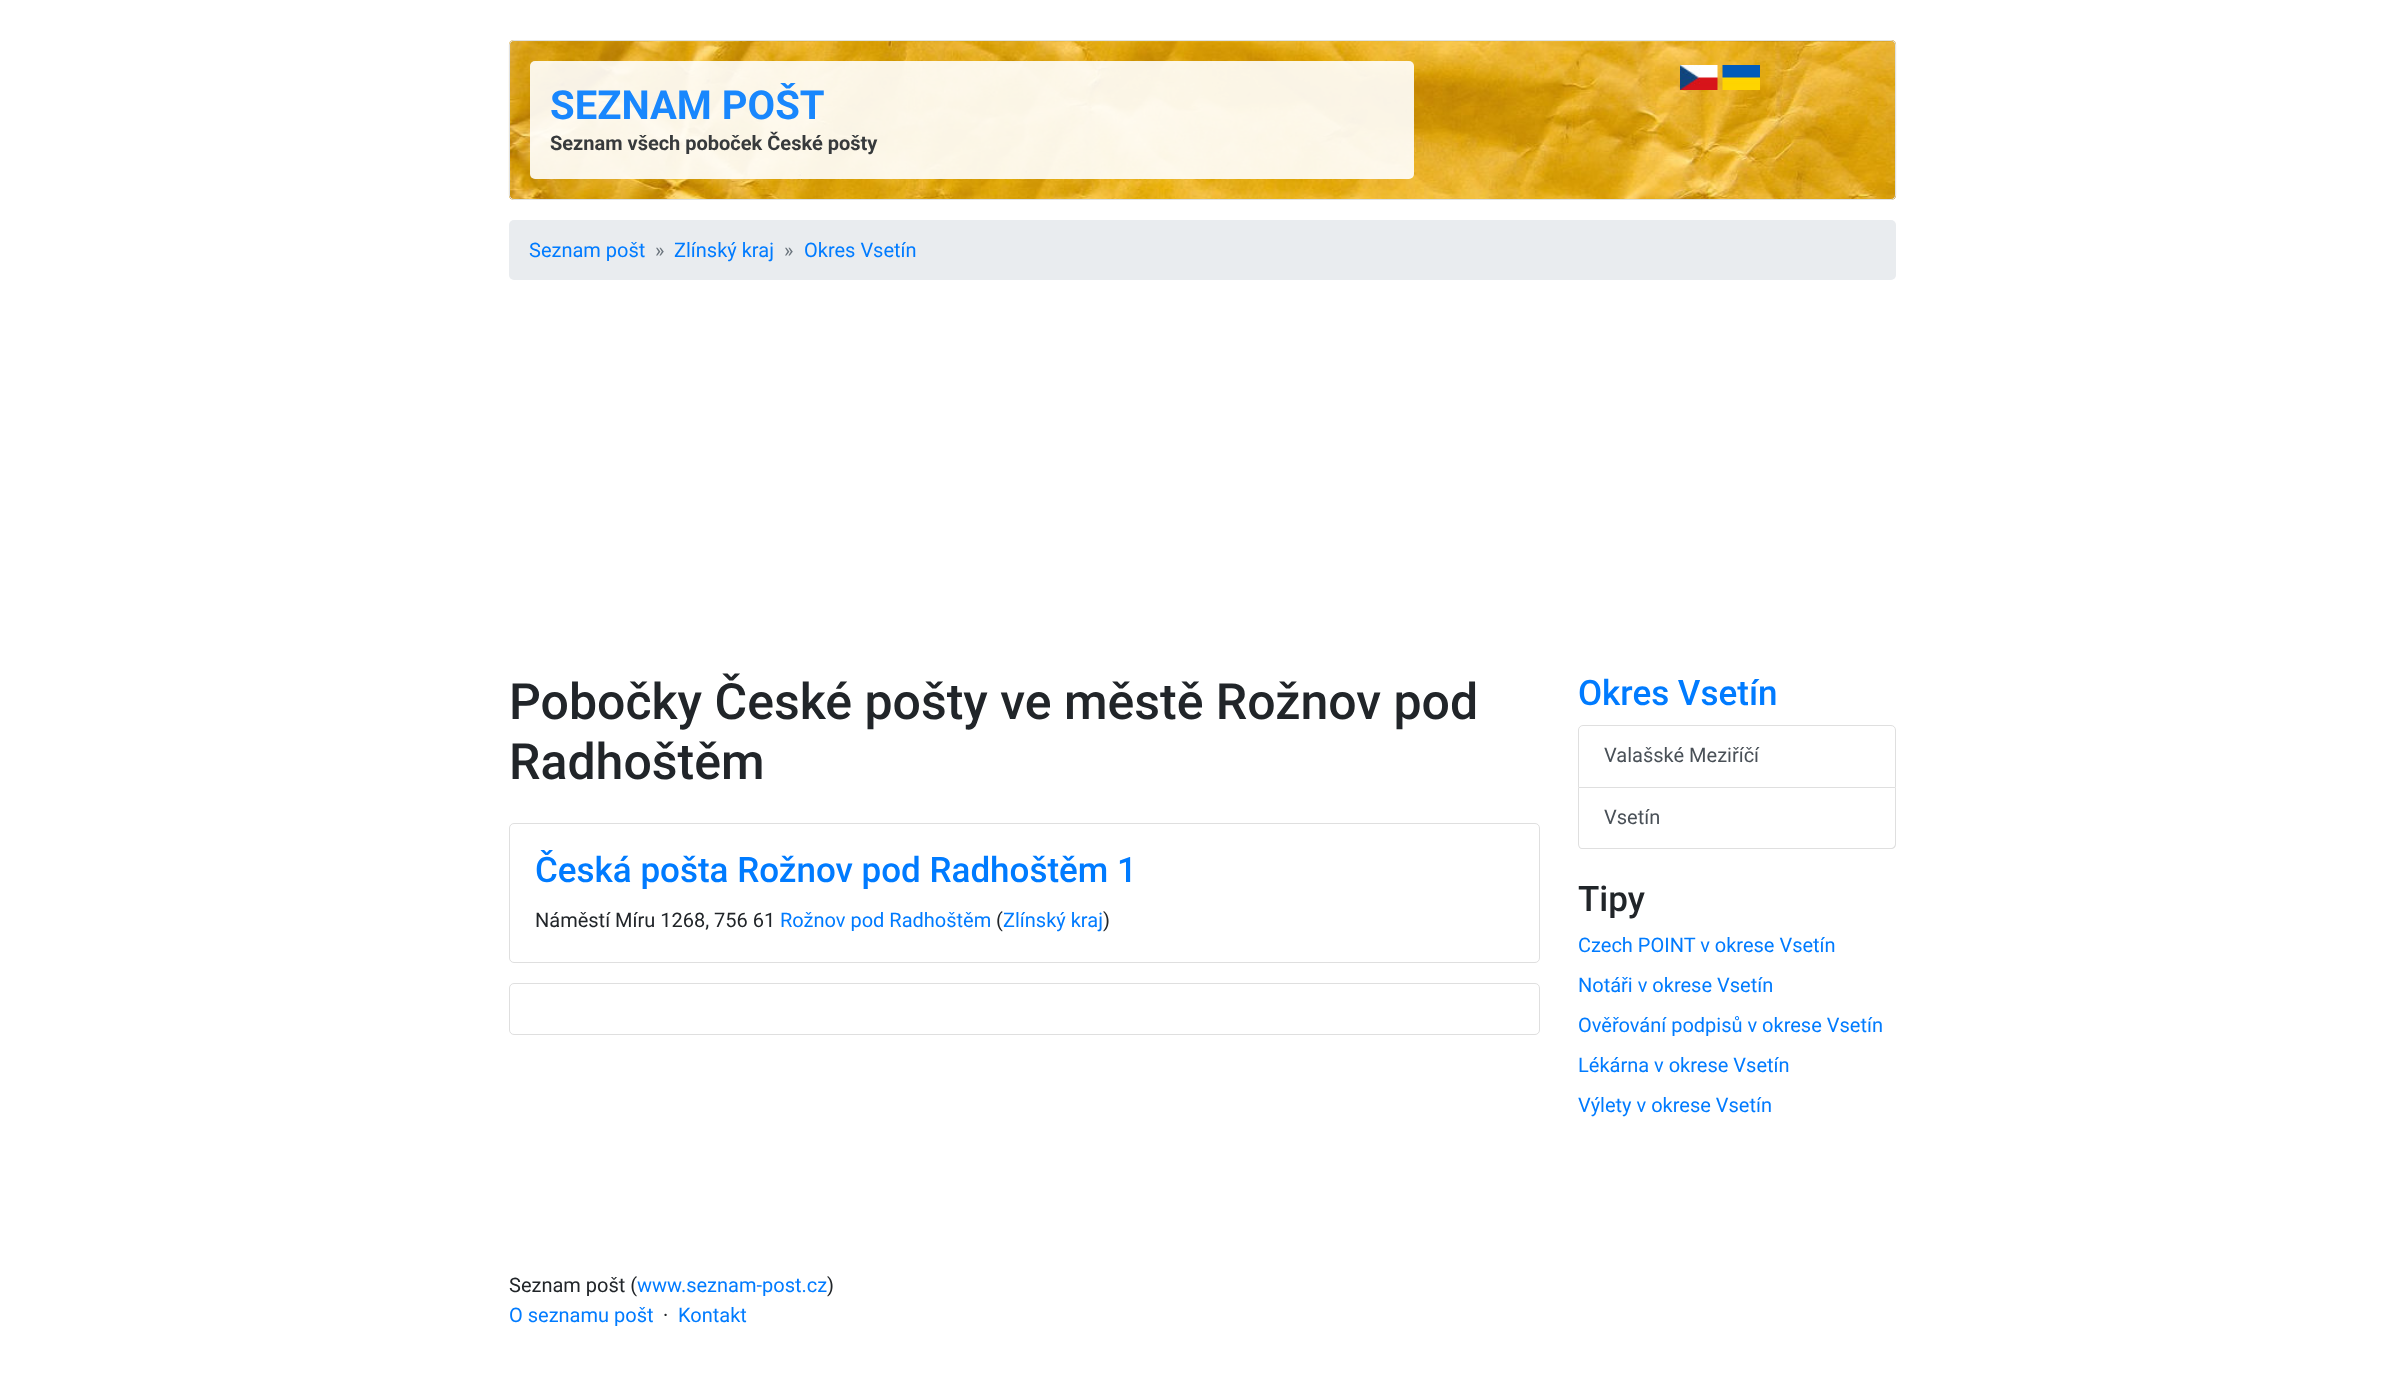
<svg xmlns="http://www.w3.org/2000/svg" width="2405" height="1397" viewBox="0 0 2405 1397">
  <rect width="100%" height="100%" fill="#fff"/>
  <image x="508" y="40" width="1389" height="160" href="img/1.png"/>
  <rect x="509.5" y="40.5" width="1386" height="159" rx="4.5" fill="none" stroke="#dee2e6"/>
  <image x="1680" y="65" width="38" height="25" href="img/2.png"/>
  <image x="1722" y="65" width="38" height="25" href="img/3.png"/>
  <rect x="530" y="61" width="884" height="118" rx="5" fill="#ffffffe6"/>
  <rect x="509" y="220" width="1387" height="60" rx="5" fill="#e9ecef"/>
  <rect x="509.5" y="823.5" width="1030" height="139" rx="4.5" fill="none" stroke="#dfdfdf"/>
  <rect x="509.5" y="983.5" width="1030" height="51" rx="4.5" fill="none" stroke="#dfdfdf"/>
  <path d="M1583 725.5H1891C1893.5 725.5 1895.5 727.5 1895.5 730V787.5H1578.5V730C1578.5 727.5 1580.5 725.5 1583 725.5Z" fill="none" stroke="#dfdfdf"/>
  <path d="M1578 788H1896V844C1896 847 1894 849 1891 849H1582C1580 849 1578 847 1578 844ZM1579 788H1895V844C1895 846 1893 848 1891 848H1582C1580 848 1579 846 1579 844Z" fill="#dfdfdf" fill-rule="evenodd"/>
  <text x="550" y="119" font-family="Roboto" font-size="40" font-weight="bold" fill="#1987fd">SEZNAM POŠT</text>
  <text x="550" y="150" font-family="Roboto" font-size="20" font-weight="bold" fill="#373a3c">Seznam všech poboček České pošty</text>
  <text x="529" y="257" font-family="Roboto" font-size="20" fill="#007bff">Seznam pošt</text>
  <text x="655" y="257" font-family="Roboto" font-size="20" fill="#6c757d">»</text>
  <text x="674" y="257" font-family="Roboto" font-size="20" fill="#007bff">Zlínský kraj</text>
  <text x="784" y="257" font-family="Roboto" font-size="20" fill="#6c757d">»</text>
  <text x="804" y="257" font-family="Roboto" font-size="20" fill="#007bff">Okres Vsetín</text>
  <g font-family="Roboto" font-size="50" font-weight="500" fill="#212529">
    <text x="509" y="719">Pobočky České pošty ve městě Rožnov pod</text>
    <text x="509" y="779">Radhoštěm</text>
  </g>
  <text x="535" y="882" font-family="Roboto" font-size="35" font-weight="500" fill="#007bff">Česká pošta Rožnov pod Radhoštěm 1</text>
  <text x="535" y="927" font-family="Roboto" font-size="20" fill="#212529">Náměstí Míru 1268, 756 61</text>
  <text x="780" y="927" font-family="Roboto" font-size="20" fill="#007bff">Rožnov pod Radhoštěm</text>
  <text x="996" y="927" font-family="Roboto" font-size="20" fill="#212529">(</text>
  <text x="1003" y="927" font-family="Roboto" font-size="20" fill="#007bff">Zlínský kraj</text>
  <text x="1103" y="927" font-family="Roboto" font-size="20" fill="#212529">)</text>
  <text x="1578" y="705" font-family="Roboto" font-size="35" font-weight="500" fill="#007bff">Okres Vsetín</text>
  <g font-family="Roboto" font-size="20" fill="#495057">
    <text x="1604" y="762">Valašské Meziříčí</text>
    <text x="1604" y="824">Vsetín</text>
  </g>
  <text x="1578" y="911" font-family="Roboto" font-size="35" font-weight="500" fill="#212529">Tipy</text>
  <g font-family="Roboto" font-size="20" fill="#007bff">
    <text x="1578" y="952">Czech POINT v okrese Vsetín</text>
    <text x="1578" y="992">Notáři v okrese Vsetín</text>
    <text x="1578" y="1032">Ověřování podpisů v okrese Vsetín</text>
    <text x="1578" y="1072">Lékárna v okrese Vsetín</text>
    <text x="1578" y="1112">Výlety v okrese Vsetín</text>
  </g>
  <text x="509" y="1292" font-family="Roboto" font-size="20" fill="#212529">Seznam pošt (</text>
  <text x="637" y="1292" font-family="Roboto" font-size="20" fill="#007bff">www.seznam-post.cz</text>
  <text x="827" y="1292" font-family="Roboto" font-size="20" fill="#212529">)</text>
  <text x="509" y="1322" font-family="Roboto" font-size="20" fill="#007bff">O seznamu pošt</text>
  <text x="663" y="1322" font-family="Roboto" font-size="20" fill="#212529">·</text>
  <text x="678" y="1322" font-family="Roboto" font-size="20" fill="#007bff">Kontakt</text>
</svg>
